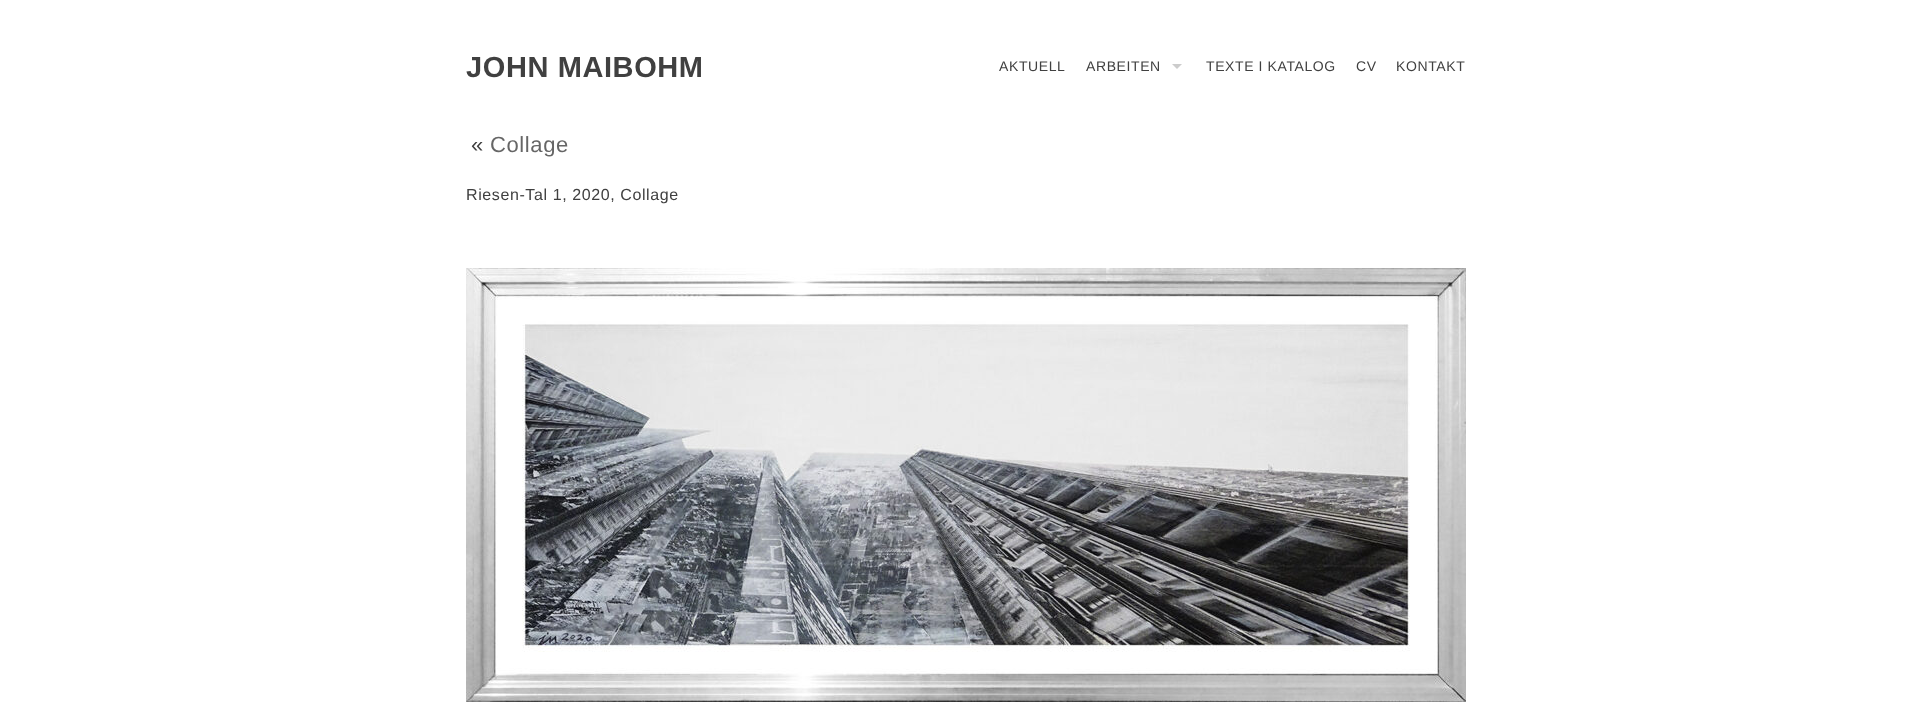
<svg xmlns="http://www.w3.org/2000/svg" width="1931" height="714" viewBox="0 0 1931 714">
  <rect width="100%" height="100%" fill="#fff"/>
  <path d="M1172 64H1182L1177 69Z" fill="#ccc"/>
  <image x="466" y="268" width="1000" height="434" href="img/1.png"/>
  <text x="466" y="77" font-family="Liberation Sans" font-size="29" font-weight="bold" letter-spacing="0.6" fill="#404040">JOHN MAIBOHM</text>
  <g font-family="Liberation Sans" font-size="14" letter-spacing="0.6" fill="#404040">
    <text x="999" y="71">AKTUELL</text>
    <text x="1086" y="71">ARBEITEN</text>
    <text x="1206" y="71">TEXTE I KATALOG</text>
    <text x="1356" y="71">CV</text>
    <text x="1396" y="71">KONTAKT</text>
  </g>
  <text x="471" y="152" font-family="Liberation Sans" font-size="22" letter-spacing="0.6" fill="#404040">«</text>
  <text x="490" y="152" font-family="Liberation Sans" font-size="22" letter-spacing="0.6" fill="#666">Collage</text>
  <text x="466" y="200" font-family="Liberation Sans" font-size="16" letter-spacing="0.6" fill="#404040">Riesen-Tal 1, 2020, Collage</text>
</svg>
